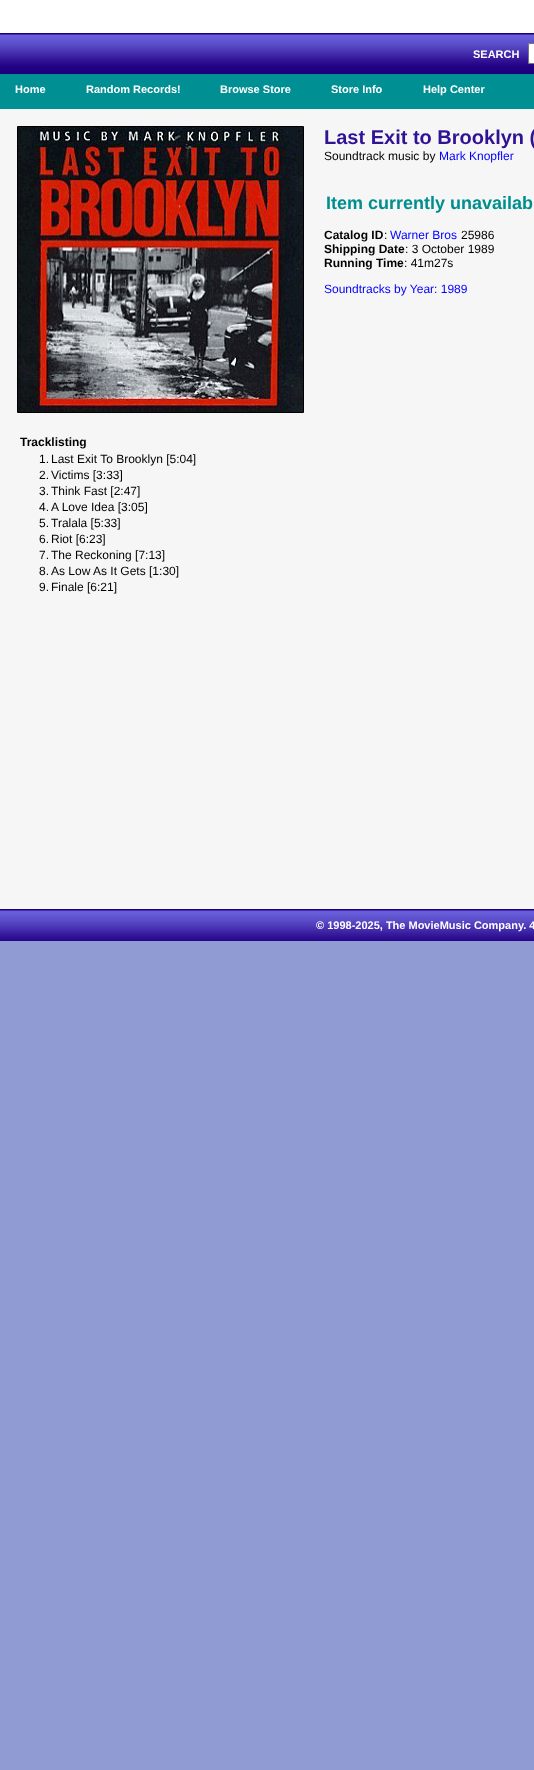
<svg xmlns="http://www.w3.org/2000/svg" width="534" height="1770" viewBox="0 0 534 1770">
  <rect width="100%" height="100%" fill="#8f9bd2"/>
  <path d="M0 0h534v33H0z" fill="#fff"/>
  <image x="0" y="33" width="534" height="41" href="img/1.png"/>
  <path d="M530 43H534V64H530C529 64 528 63 528 62V45C528 44 529 43 530 43Z" fill="#fff"/>
  <rect x="528.5" y="43.5" width="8" height="20" rx="1.5" fill="none" stroke="#767676"/>
  <path d="M0 74h534v35H0z" fill="#008f93"/>
  <path d="M0 109h534v800H0z" fill="#f6f6f6"/>
  <path d="M17.5 126.5h286v286H17.5z" fill="none" stroke="#000"/>
  <image x="18" y="127" width="285" height="285" href="img/2.png"/>
  <image x="0" y="909" width="534" height="32" href="img/3.png"/>
  <g font-family="Liberation Sans" font-size="11" font-weight="bold" fill="#fff">
    <text x="473" y="58">SEARCH</text>
    <text x="15" y="93">Home</text>
    <text x="86" y="93">Random Records!</text>
    <text x="220" y="93">Browse Store</text>
    <text x="331" y="93">Store Info</text>
    <text x="423" y="93">Help Center</text>
  </g>
  <text x="324" y="144" font-family="Liberation Sans" font-size="20" font-weight="bold" fill="#301295">Last Exit to Brooklyn (</text>
  <text x="324" y="160" font-family="Liberation Sans" font-size="12" fill="#000">Soundtrack music by</text>
  <text x="439" y="160" font-family="Liberation Sans" font-size="12" fill="#00f">Mark Knopfler</text>
  <text x="326" y="209" font-family="Liberation Sans" font-size="18" font-weight="bold" fill="#008f8f">Item currently unavailab</text>
  <text x="324" y="239" font-family="Liberation Sans" font-size="12" font-weight="bold" fill="#000">Catalog ID</text>
  <text x="384" y="239" font-family="Liberation Sans" font-size="12" fill="#000">:</text>
  <text x="390" y="239" font-family="Liberation Sans" font-size="12" fill="#00f">Warner Bros</text>
  <text x="461" y="239" font-family="Liberation Sans" font-size="12" fill="#000">25986</text>
  <text x="324" y="253" font-family="Liberation Sans" font-size="12" font-weight="bold" fill="#000">Shipping Date</text>
  <text x="405" y="253" font-family="Liberation Sans" font-size="12" fill="#000">: 3 October 1989</text>
  <text x="324" y="267" font-family="Liberation Sans" font-size="12" font-weight="bold" fill="#000">Running Time</text>
  <text x="404" y="267" font-family="Liberation Sans" font-size="12" fill="#000">: 41m27s</text>
  <text x="324" y="293" font-family="Liberation Sans" font-size="12" fill="#00f">Soundtracks by Year: 1989</text>
  <text x="20" y="446" font-family="Liberation Sans" font-size="12" font-weight="bold" fill="#000">Tracklisting</text>
  <g font-family="Liberation Sans" font-size="12" fill="#000">
    <text x="39" y="463">1.</text>
    <text x="51" y="463">Last Exit To Brooklyn [5:04]</text>
    <text x="39" y="479">2.</text>
    <text x="51" y="479">Victims [3:33]</text>
    <text x="39" y="495">3.</text>
    <text x="51" y="495">Think Fast [2:47]</text>
    <text x="39" y="511">4.</text>
    <text x="51" y="511">A Love Idea [3:05]</text>
    <text x="39" y="527">5.</text>
    <text x="51" y="527">Tralala [5:33]</text>
    <text x="39" y="543">6.</text>
    <text x="51" y="543">Riot [6:23]</text>
    <text x="39" y="559">7.</text>
    <text x="51" y="559">The Reckoning [7:13]</text>
    <text x="39" y="575">8.</text>
    <text x="51" y="575">As Low As It Gets [1:30]</text>
    <text x="39" y="591">9.</text>
    <text x="51" y="591">Finale [6:21]</text>
  </g>
  <text x="316" y="929" font-family="Liberation Sans" font-size="11" font-weight="bold" fill="#fff">© 1998-2025, The MovieMusic Company. 4</text>
</svg>
